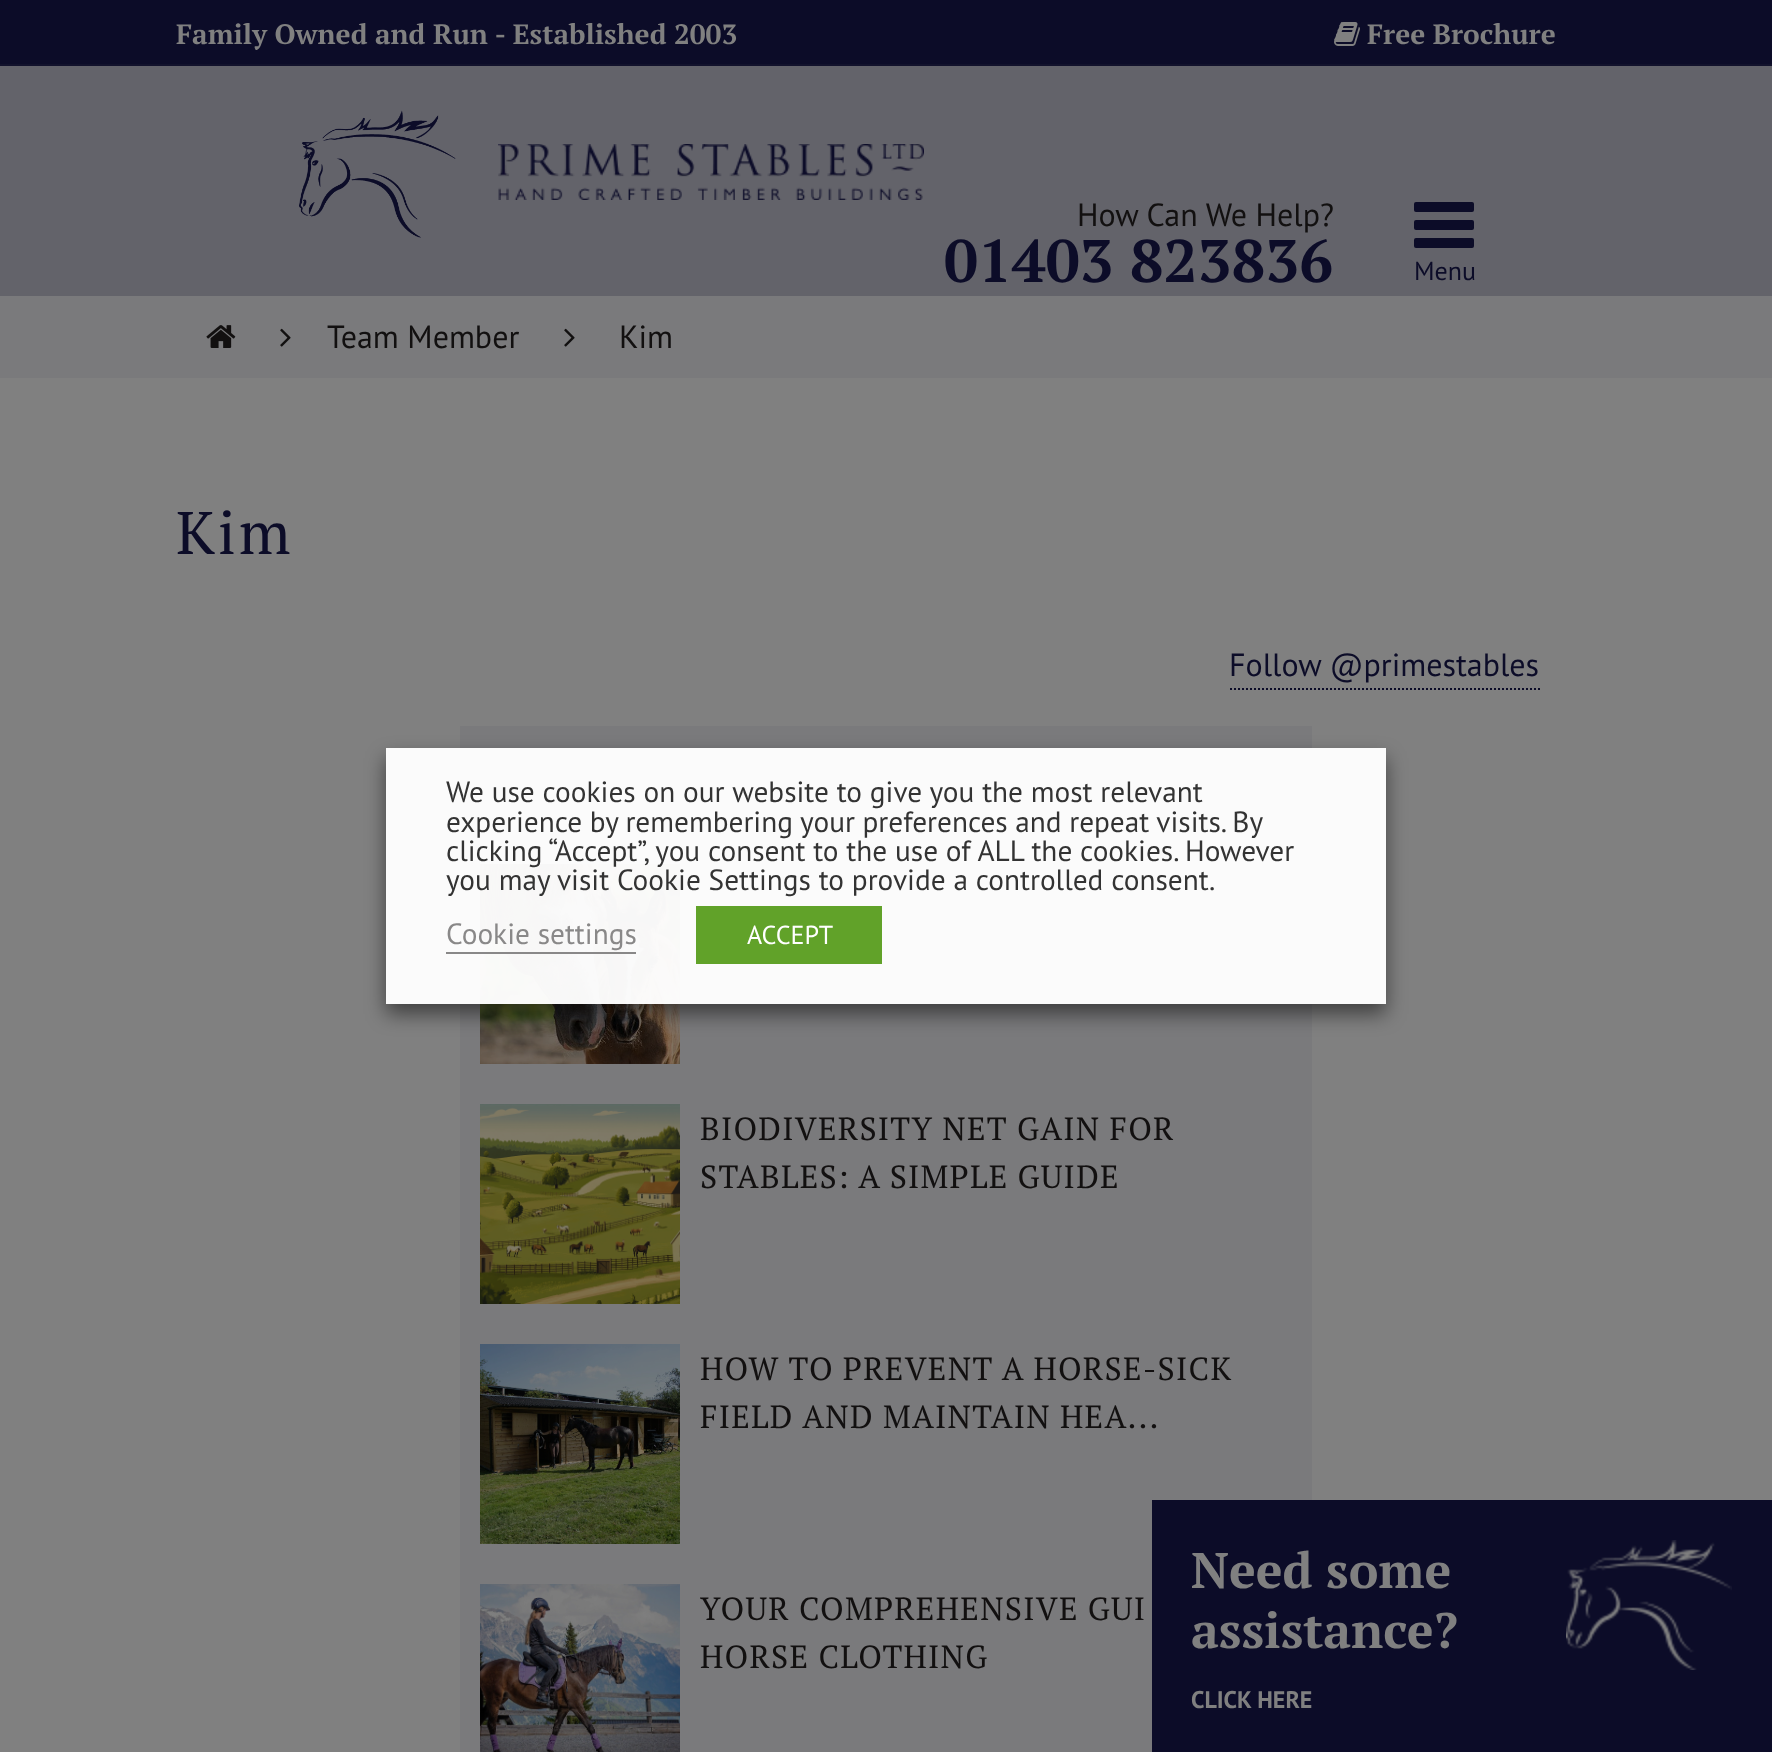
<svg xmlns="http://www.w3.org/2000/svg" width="1772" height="1752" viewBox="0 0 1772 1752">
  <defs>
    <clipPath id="clip1"><path d="M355 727H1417V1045H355ZM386 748H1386V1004H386Z" clip-rule="evenodd"/></clipPath>
  </defs>
  <rect width="100%" height="100%" fill="#808080"/>
  <path d="M0 0h1772v64H0z" fill="#0c0c28"/>
  <path d="M0 64h1772v2H0z" fill="#12122c"/>
  <image x="1334" y="22" width="26" height="24" href="img/1.png"/>
  <path d="M0 66h1772v230H0z" fill="#63636a"/>
  <image x="299" y="110" width="157" height="128" href="img/2.png"/>
  <image x="498" y="144" width="426" height="56" href="img/3.png"/>
  <rect x="1414" y="220" width="60" height="10" rx="2" fill="#0c0c28"/>
  <rect x="1414" y="202" width="60" height="10" rx="2" fill="#0c0c28"/>
  <rect x="1414" y="238" width="60" height="10" rx="2" fill="#0c0c28"/>
  <path d="M0 296h1772v82H0z" fill="#7a7a7c"/>
  <image x="206" y="325" width="30" height="23" href="img/4.png"/>
  <image x="280" y="328" width="11" height="19" href="img/5.png"/>
  <image x="564" y="328" width="11" height="19" href="img/5.png"/>
  <path d="M1230 689H1540" fill="none" stroke="#0c0c28" stroke-width="2" stroke-dasharray="2 2"/>
  <path d="M460 726h852v1026H460z" fill="#7a7a7c"/>
  <image x="480" y="864" width="200" height="200" href="img/6.png"/>
  <image x="480" y="1104" width="200" height="200" href="img/7.png"/>
  <image x="480" y="1344" width="200" height="200" href="img/8.png"/>
  <image x="480" y="1584" width="200" height="168" href="img/9.png"/>
  <g clip-path="url(#clip1)">
    <path d="M386 758h1000v256H386z" fill="#00000080" filter="blur(10px)"/>
  </g>
  <path d="M386 748h1000v256H386z" fill="#fffffff7"/>
  <path d="M446 952h190v2H446z" fill="#898888"/>
  <path d="M696 906h186v58H696z" fill="#61a229"/>
  <path d="M1152 1500h620v252H1152z" fill="#0c0c28"/>
  <image x="1566" y="1540" width="166" height="130" href="img/10.png"/>
  <g font-family="PT Serif" font-size="28" font-weight="bold" fill="#808080">
    <text x="176" y="44">Family Owned and Run - Established 2003</text>
    <text x="1367" y="44">Free Brochure</text>
  </g>
  <text x="1077" y="226" font-family="PT Sans" font-size="32" fill="#121010">How Can We Help?</text>
  <text x="944" y="282" font-family="PT Serif" font-size="60" font-weight="bold" fill="#0c0c28">01403 823836</text>
  <text x="1414" y="280" font-family="PT Sans" font-size="26" fill="#0c0c28">Menu</text>
  <g font-family="PT Sans" font-size="32" fill="#121010">
    <text x="327" y="348">Team Member</text>
    <text x="619" y="348">Kim</text>
  </g>
  <text x="176" y="554" font-family="PT Serif" font-size="60" letter-spacing="3" fill="#0c0c28">Kim</text>
  <text x="1229" y="676" font-family="PT Sans" font-size="32" fill="#0c0c28">Follow @primestables</text>
  <g font-family="PT Serif" font-size="32" letter-spacing="1.25" fill="#121010">
    <text x="700" y="1140">BIODIVERSITY NET GAIN FOR</text>
    <text x="700" y="1188">STABLES: A SIMPLE GUIDE</text>
    <text x="700" y="1380">HOW TO PREVENT A HORSE-SICK</text>
    <text x="700" y="1428">FIELD AND MAINTAIN HEA...</text>
    <text x="700" y="1620">YOUR COMPREHENSIVE GUI</text>
    <text x="700" y="1668">HORSE CLOTHING</text>
  </g>
  <g font-family="PT Sans" font-size="29.3" fill="#333">
    <text x="446" y="802">We use cookies on our website to give you the most relevant</text>
    <text x="446" y="832" word-spacing="-0.25">experience by remembering your preferences and repeat visits. By</text>
    <text x="446" y="861">clicking “Accept”, you consent to the use of ALL the cookies. However</text>
    <text x="446" y="890">you may visit Cookie Settings to provide a controlled consent.</text>
  </g>
  <text x="446" y="944" font-family="PT Sans" font-size="29.3" fill="#898888">Cookie settings</text>
  <text x="747" y="944" font-family="PT Sans" font-size="26" fill="#fff">ACCEPT</text>
  <g font-family="PT Serif" font-size="50" font-weight="bold" fill="#808080">
    <text x="1191" y="1588">Need some</text>
    <text x="1191" y="1648">assistance?</text>
  </g>
  <text x="1191" y="1708" font-family="PT Sans" font-size="24" font-weight="bold" fill="#808080">CLICK HERE</text>
</svg>
